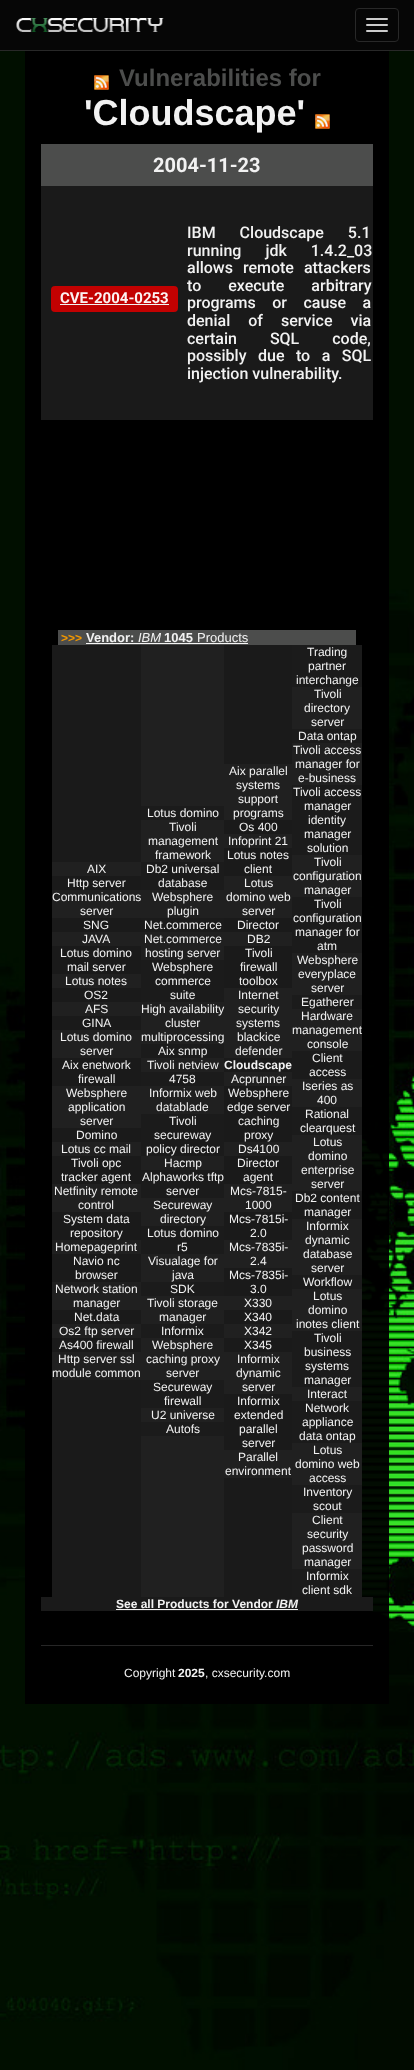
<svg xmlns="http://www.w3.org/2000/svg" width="414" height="2070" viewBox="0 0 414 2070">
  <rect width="100%" height="100%" fill="#fff"/>
  <image x="0" y="51" width="414" height="2019" href="img/1.png"/>
  <path d="M0 0h414v50H0z" fill="#060606"/>
  <path d="M0 50h414v1H0z" fill="#282828"/>
  <image x="16" y="18" width="148" height="14" href="img/2.png"/>
  <rect x="355.5" y="8.5" width="43" height="33" rx="3.5" fill="none" stroke="#282828"/>
  <rect x="366" y="18" width="22" height="2" rx="1" fill="#ccc"/>
  <rect x="366" y="24" width="22" height="2" rx="1" fill="#ccc"/>
  <rect x="366" y="30" width="22" height="2" rx="1" fill="#ccc"/>
  <path d="M25 51h16v1653H25z" fill="#000000f2"/>
  <path d="M41 51h332v1653H41z" fill="#000000f2"/>
  <image x="94" y="75" width="15" height="15" href="img/3.png"/>
  <image x="315" y="114" width="15" height="15" href="img/3.png"/>
  <path d="M41 144h332v42H41z" fill="#4c4d4c"/>
  <path d="M41 186h332v234H41z" fill="#1a1a1a"/>
  <rect x="51" y="286" width="127" height="26" rx="4" fill="#c30101"/>
  <path d="M60 304h109v1H60z" fill="#f2f3f2"/>
  <path d="M58 630h298v15H58z" fill="#4c4d4c"/>
  <path d="M86 643h75v1H86z" fill="#f6f6f6"/>
  <path d="M161 643h32v1H161z" fill="#f2f3f2"/>
  <path d="M193 643h55v1H193z" fill="#f6f6f6"/>
  <path d="M52 645h240v952H52z" fill="#1b1b1bf2"/>
  <path d="M52 862h89v14H52z" fill="#202020"/>
  <path d="M52 890h89v28H52z" fill="#202020"/>
  <path d="M52 932h89v14H52z" fill="#202020"/>
  <path d="M52 974h89v14H52z" fill="#202020"/>
  <path d="M52 1002h89v14H52z" fill="#202020"/>
  <path d="M52 1030h89v28H52z" fill="#202020"/>
  <path d="M52 1086h89v42H52z" fill="#202020"/>
  <path d="M52 1142h89v14H52z" fill="#202020"/>
  <path d="M52 1184h89v28H52z" fill="#202020"/>
  <path d="M52 1240h89v14H52z" fill="#202020"/>
  <path d="M52 1282h89v28H52z" fill="#202020"/>
  <path d="M52 1324h89v14H52z" fill="#202020"/>
  <path d="M52 1352h89v28H52z" fill="#202020"/>
  <path d="M141 645h83v952H141z" fill="#202020"/>
  <path d="M141 806h83v14H141z" fill="#1b1b1b"/>
  <path d="M141 862h83v28H141z" fill="#1b1b1b"/>
  <path d="M141 918h83v14H141z" fill="#1b1b1b"/>
  <path d="M141 960h83v42H141z" fill="#1b1b1b"/>
  <path d="M141 1044h83v14H141z" fill="#1b1b1b"/>
  <path d="M141 1072h83v14H141z" fill="#1b1b1b"/>
  <path d="M141 1114h83v42H141z" fill="#1b1b1b"/>
  <path d="M141 1170h83v28H141z" fill="#1b1b1b"/>
  <path d="M141 1226h83v28H141z" fill="#1b1b1b"/>
  <path d="M141 1282h83v14H141z" fill="#1b1b1b"/>
  <path d="M141 1324h83v14H141z" fill="#1b1b1b"/>
  <path d="M141 1380h83v28H141z" fill="#1b1b1b"/>
  <path d="M141 1422h83v14H141z" fill="#1b1b1b"/>
  <path d="M224 764h68v56H224z" fill="#202020"/>
  <path d="M224 834h68v14H224z" fill="#202020"/>
  <path d="M224 876h68v42H224z" fill="#202020"/>
  <path d="M224 932h68v14H224z" fill="#202020"/>
  <path d="M224 988h68v70H224z" fill="#202020"/>
  <path d="M224 1072h68v14H224z" fill="#202020"/>
  <path d="M224 1142h68v14H224z" fill="#202020"/>
  <path d="M224 1184h68v28H224z" fill="#202020"/>
  <path d="M224 1240h68v28H224z" fill="#202020"/>
  <path d="M224 1296h68v14H224z" fill="#202020"/>
  <path d="M224 1324h68v14H224z" fill="#202020"/>
  <path d="M224 1352h68v42H224z" fill="#202020"/>
  <path d="M224 1450h68v28H224z" fill="#202020"/>
  <path d="M292 687h70v882H292z" fill="#202020"/>
  <path d="M292 645h70v42H292z" fill="#1b1b1b"/>
  <path d="M292 729h70v14H292z" fill="#1b1b1b"/>
  <path d="M292 785h70v70H292z" fill="#1b1b1b"/>
  <path d="M292 897h70v56H292z" fill="#1b1b1b"/>
  <path d="M292 995h70v14H292z" fill="#1b1b1b"/>
  <path d="M292 1051h70v28H292z" fill="#1b1b1b"/>
  <path d="M292 1107h70v28H292z" fill="#1b1b1b"/>
  <path d="M292 1191h70v28H292z" fill="#1b1b1b"/>
  <path d="M292 1275h70v14H292z" fill="#1b1b1b"/>
  <path d="M292 1331h70v56H292z" fill="#1b1b1b"/>
  <path d="M292 1401h70v42H292z" fill="#1b1b1b"/>
  <path d="M292 1485h70v28H292z" fill="#1b1b1b"/>
  <path d="M292 1569h70v28H292z" fill="#1b1b1b"/>
  <path d="M41 1597h332v14H41z" fill="#1b1b1bf2"/>
  <path d="M116 1609h160v1H116z" fill="#f4f4f4"/>
  <path d="M276 1609h22v1H276z" fill="#f2f3f2"/>
  <path d="M41 1645h332v1H41z" fill="#262626"/>
  <path d="M373 51h16v1653H373z" fill="#000000f2"/>
  <text x="119" y="86" font-family="Liberation Sans" font-size="24" font-weight="bold" fill="#4c4d4c">Vulnerabilities for</text>
  <text x="84" y="125" font-family="Liberation Sans" font-size="36" font-weight="bold" fill="#f2f2f2">'Cloudscape'</text>
  <text x="153" y="172" font-family="Roboto" font-size="20" font-weight="bold" fill="#f2f2f2">2004-11-23</text>
  <text x="60" y="303" font-family="Roboto" font-size="15" font-weight="bold" fill="#fcf2f2">CVE-2004-0253</text>
  <g font-family="Roboto" font-size="16" font-weight="500" fill="#f2f2f2">
    <text x="187" y="238" word-spacing="20">IBM Cloudscape 5.1</text>
    <text x="187" y="256" word-spacing="20">running jdk 1.4.2_03</text>
    <text x="187" y="273" word-spacing="6">allows remote attackers</text>
    <text x="187" y="291" word-spacing="23">to execute arbitrary</text>
    <text x="187" y="308" word-spacing="12.5">programs or cause a</text>
    <text x="187" y="326" word-spacing="14">denial of service via</text>
    <text x="187" y="344" word-spacing="29">certain SQL code,</text>
    <text x="187" y="361" word-spacing="7.5">possibly due to a SQL</text>
    <text x="187" y="379">injection vulnerability.</text>
  </g>
  <text x="61" y="642" font-family="Liberation Sans" font-size="12" font-weight="bold" fill="#f29800">&gt;&gt;&gt;</text>
  <text x="86" y="642" font-family="Liberation Sans" font-size="13" font-weight="bold" fill="#f2f2f2">Vendor:</text>
  <text x="138" y="642" font-family="Liberation Sans" font-size="13" font-style="italic" fill="#f2f2f2">IBM</text>
  <text x="164" y="642" font-family="Liberation Sans" font-size="13" font-weight="bold" fill="#f2f2f2">1045</text>
  <text x="197" y="642" font-family="Liberation Sans" font-size="13" fill="#f2f2f2">Products</text>
  <g font-family="Liberation Sans" font-size="12" fill="#f2f2f2">
    <text x="87" y="873">AIX</text>
    <text x="67" y="887">Http server</text>
    <text x="52" y="901">Communications</text>
    <text x="80" y="915">server</text>
    <text x="83" y="929">SNG</text>
    <text x="82" y="943">JAVA</text>
    <text x="60" y="957">Lotus domino</text>
    <text x="67" y="971">mail server</text>
    <text x="65" y="985">Lotus notes</text>
    <text x="84" y="999">OS2</text>
    <text x="85" y="1013">AFS</text>
    <text x="82" y="1027">GINA</text>
    <text x="60" y="1041">Lotus domino</text>
    <text x="80" y="1055">server</text>
    <text x="62" y="1069">Aix enetwork</text>
    <text x="78" y="1083">firewall</text>
    <text x="66" y="1097">Websphere</text>
    <text x="68" y="1111">application</text>
    <text x="80" y="1125">server</text>
    <text x="76" y="1139">Domino</text>
    <text x="61" y="1153">Lotus cc mail</text>
    <text x="71" y="1167">Tivoli opc</text>
    <text x="61" y="1181">tracker agent</text>
    <text x="54" y="1195">Netfinity remote</text>
    <text x="78" y="1209">control</text>
    <text x="63" y="1223">System data</text>
    <text x="70" y="1237">repository</text>
    <text x="55" y="1251">Homepageprint</text>
    <text x="73" y="1265">Navio nc</text>
    <text x="75" y="1279">browser</text>
    <text x="55" y="1293">Network station</text>
    <text x="73" y="1307">manager</text>
    <text x="74" y="1321">Net.data</text>
    <text x="59" y="1335">Os2 ftp server</text>
    <text x="59" y="1349">As400 firewall</text>
    <text x="58" y="1363">Http server ssl</text>
    <text x="52" y="1377">module common</text>
    <text x="147" y="817">Lotus domino</text>
    <text x="169" y="831">Tivoli</text>
    <text x="148" y="845">management</text>
    <text x="155" y="859">framework</text>
    <text x="146" y="873">Db2 universal</text>
    <text x="158" y="887">database</text>
    <text x="152" y="901">Websphere</text>
    <text x="167" y="915">plugin</text>
    <text x="144" y="929">Net.commerce</text>
    <text x="144" y="943">Net.commerce</text>
    <text x="145" y="957">hosting server</text>
    <text x="152" y="971">Websphere</text>
    <text x="155" y="985">commerce</text>
    <text x="170" y="999">suite</text>
    <text x="141" y="1013">High availability</text>
    <text x="165" y="1027">cluster</text>
    <text x="141" y="1041">multiprocessing</text>
    <text x="158" y="1055">Aix snmp</text>
    <text x="147" y="1069">Tivoli netview</text>
    <text x="169" y="1083">4758</text>
    <text x="149" y="1097">Informix web</text>
    <text x="156" y="1111">datablade</text>
    <text x="169" y="1125">Tivoli</text>
    <text x="154" y="1139">secureway</text>
    <text x="146" y="1153">policy director</text>
    <text x="164" y="1167">Hacmp</text>
    <text x="142" y="1181">Alphaworks tftp</text>
    <text x="166" y="1195">server</text>
    <text x="153" y="1209">Secureway</text>
    <text x="160" y="1223">directory</text>
    <text x="147" y="1237">Lotus domino</text>
    <text x="177" y="1251">r5</text>
    <text x="148" y="1265">Visualage for</text>
    <text x="172" y="1279">java</text>
    <text x="170" y="1293">SDK</text>
    <text x="147" y="1307">Tivoli storage</text>
    <text x="159" y="1321">manager</text>
    <text x="161" y="1335">Informix</text>
    <text x="152" y="1349">Websphere</text>
    <text x="146" y="1363">caching proxy</text>
    <text x="166" y="1377">server</text>
    <text x="153" y="1391">Secureway</text>
    <text x="164" y="1405">firewall</text>
    <text x="151" y="1419">U2 universe</text>
    <text x="166" y="1433">Autofs</text>
    <text x="229" y="775">Aix parallel</text>
    <text x="236" y="789">systems</text>
    <text x="238" y="803">support</text>
    <text x="233" y="817">programs</text>
    <text x="239" y="831">Os 400</text>
    <text x="228" y="845">Infoprint 21</text>
    <text x="227" y="859">Lotus notes</text>
    <text x="244" y="873">client</text>
    <text x="244" y="887">Lotus</text>
    <text x="226" y="901">domino web</text>
    <text x="242" y="915">server</text>
    <text x="237" y="929">Director</text>
    <text x="247" y="943">DB2</text>
    <text x="245" y="957">Tivoli</text>
    <text x="240" y="971">firewall</text>
    <text x="239" y="985">toolbox</text>
    <text x="238" y="999">Internet</text>
    <text x="238" y="1013">security</text>
    <text x="236" y="1027">systems</text>
    <text x="237" y="1041">blackice</text>
    <text x="235" y="1055">defender</text>
  </g>
  <text x="224" y="1069" font-family="Liberation Sans" font-size="12" font-weight="bold" fill="#f2f2f2">Cloudscape</text>
  <g font-family="Liberation Sans" font-size="12" fill="#f2f2f2">
    <text x="231" y="1083">Acprunner</text>
    <text x="228" y="1097">Websphere</text>
    <text x="227" y="1111">edge server</text>
    <text x="238" y="1125">caching</text>
    <text x="244" y="1139">proxy</text>
    <text x="238" y="1153">Ds4100</text>
    <text x="237" y="1167">Director</text>
    <text x="243" y="1181">agent</text>
    <text x="230" y="1195">Mcs-7815-</text>
    <text x="245" y="1209">1000</text>
    <text x="229" y="1223">Mcs-7815i-</text>
    <text x="250" y="1237">2.0</text>
    <text x="229" y="1251">Mcs-7835i-</text>
    <text x="250" y="1265">2.4</text>
    <text x="229" y="1279">Mcs-7835i-</text>
    <text x="250" y="1293">3.0</text>
    <text x="244" y="1307">X330</text>
    <text x="244" y="1321">X340</text>
    <text x="244" y="1335">X342</text>
    <text x="244" y="1349">X345</text>
    <text x="237" y="1363">Informix</text>
    <text x="236" y="1377">dynamic</text>
    <text x="242" y="1391">server</text>
    <text x="237" y="1405">Informix</text>
    <text x="234" y="1419">extended</text>
    <text x="239" y="1433">parallel</text>
    <text x="242" y="1447">server</text>
    <text x="238" y="1461">Parallel</text>
    <text x="225" y="1475">environment</text>
    <text x="307" y="656">Trading</text>
    <text x="308" y="670">partner</text>
    <text x="296" y="684">interchange</text>
    <text x="314" y="698">Tivoli</text>
    <text x="304" y="712">directory</text>
    <text x="311" y="726">server</text>
    <text x="298" y="740">Data ontap</text>
    <text x="293" y="754">Tivoli access</text>
    <text x="295" y="768">manager for</text>
    <text x="298" y="782">e-business</text>
    <text x="293" y="796">Tivoli access</text>
    <text x="304" y="810">manager</text>
    <text x="308" y="824">identity</text>
    <text x="304" y="838">manager</text>
    <text x="307" y="852">solution</text>
    <text x="314" y="866">Tivoli</text>
    <text x="293" y="880">configuration</text>
    <text x="304" y="894">manager</text>
    <text x="314" y="908">Tivoli</text>
    <text x="293" y="922">configuration</text>
    <text x="295" y="936">manager for</text>
    <text x="317" y="950">atm</text>
    <text x="297" y="964">Websphere</text>
    <text x="298" y="978">everyplace</text>
    <text x="311" y="992">server</text>
    <text x="301" y="1006">Egatherer</text>
    <text x="301" y="1020">Hardware</text>
    <text x="292" y="1034">management</text>
    <text x="307" y="1048">console</text>
    <text x="312" y="1062">Client</text>
    <text x="309" y="1076">access</text>
    <text x="302" y="1090">Iseries as</text>
    <text x="317" y="1104">400</text>
    <text x="305" y="1118">Rational</text>
    <text x="300" y="1132">clearquest</text>
    <text x="313" y="1146">Lotus</text>
    <text x="308" y="1160">domino</text>
    <text x="301" y="1174">enterprise</text>
    <text x="311" y="1188">server</text>
    <text x="295" y="1202">Db2 content</text>
    <text x="304" y="1216">manager</text>
    <text x="306" y="1230">Informix</text>
    <text x="305" y="1244">dynamic</text>
    <text x="303" y="1258">database</text>
    <text x="311" y="1272">server</text>
    <text x="303" y="1286">Workflow</text>
    <text x="313" y="1300">Lotus</text>
    <text x="308" y="1314">domino</text>
    <text x="296" y="1328">inotes client</text>
    <text x="314" y="1342">Tivoli</text>
    <text x="304" y="1356">business</text>
    <text x="305" y="1370">systems</text>
    <text x="304" y="1384">manager</text>
    <text x="307" y="1398">Interact</text>
    <text x="305" y="1412">Network</text>
    <text x="302" y="1426">appliance</text>
    <text x="299" y="1440">data ontap</text>
    <text x="313" y="1454">Lotus</text>
    <text x="295" y="1468">domino web</text>
    <text x="309" y="1482">access</text>
    <text x="303" y="1496">Inventory</text>
    <text x="313" y="1510">scout</text>
    <text x="312" y="1524">Client</text>
    <text x="307" y="1538">security</text>
    <text x="302" y="1552">password</text>
    <text x="304" y="1566">manager</text>
    <text x="306" y="1580">Informix</text>
    <text x="302" y="1594">client sdk</text>
  </g>
  <text x="116" y="1608" font-family="Liberation Sans" font-size="12" font-weight="bold" fill="#f2f2f2">See all Products for Vendor</text>
  <text x="276" y="1608" font-family="Liberation Sans" font-size="12" font-weight="bold" font-style="italic" fill="#f2f2f2">IBM</text>
  <text x="124" y="1677" font-family="Liberation Sans" font-size="12" fill="#f2f2f2">Copyright</text>
  <text x="178" y="1677" font-family="Liberation Sans" font-size="12" font-weight="bold" fill="#f2f2f2">2025</text>
  <text x="205" y="1677" font-family="Liberation Sans" font-size="12" fill="#f2f2f2">, cxsecurity.com</text>
</svg>
